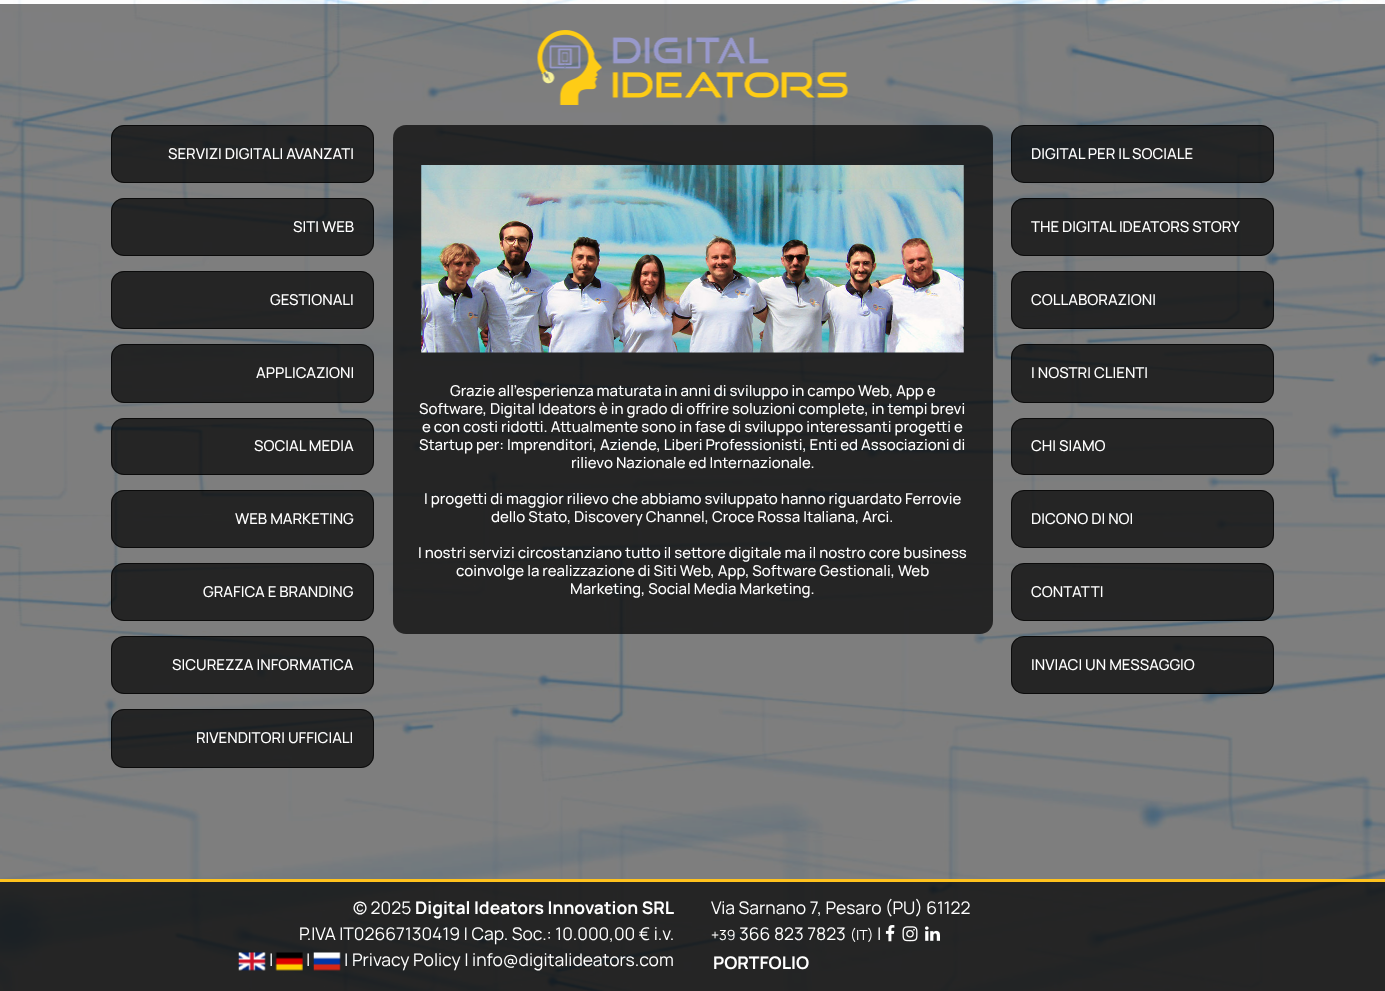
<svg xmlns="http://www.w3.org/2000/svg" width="1385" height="991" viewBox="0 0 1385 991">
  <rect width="100%" height="100%" fill="#fff"/>
  <image x="0" y="0" width="1385" height="4" href="img/1.png"/>
  <image x="0" y="4" width="1385" height="987" href="img/2.png"/>
  <image x="537" y="30" width="311" height="75" href="img/3.png"/>
  <rect x="111" y="125" width="263" height="58" rx="13" fill="#000000b3"/>
  <rect x="111.5" y="125.5" width="262" height="57" rx="12.5" fill="none" stroke="#000000b3"/>
  <rect x="111" y="198" width="263" height="58" rx="13" fill="#000000b3"/>
  <rect x="111.5" y="198.5" width="262" height="57" rx="12.5" fill="none" stroke="#000000b3"/>
  <rect x="111" y="271" width="263" height="58" rx="13" fill="#000000b3"/>
  <rect x="111.5" y="271.5" width="262" height="57" rx="12.5" fill="none" stroke="#000000b3"/>
  <rect x="111" y="344" width="263" height="59" rx="13" fill="#000000b3"/>
  <rect x="111.5" y="344.5" width="262" height="58" rx="12.5" fill="none" stroke="#000000b3"/>
  <rect x="111" y="418" width="263" height="57" rx="13" fill="#000000b3"/>
  <rect x="111.5" y="418.5" width="262" height="56" rx="12.5" fill="none" stroke="#000000b3"/>
  <rect x="111" y="490" width="263" height="58" rx="13" fill="#000000b3"/>
  <rect x="111.5" y="490.5" width="262" height="57" rx="12.5" fill="none" stroke="#000000b3"/>
  <rect x="111" y="563" width="263" height="58" rx="13" fill="#000000b3"/>
  <rect x="111.5" y="563.5" width="262" height="57" rx="12.5" fill="none" stroke="#000000b3"/>
  <rect x="111" y="636" width="263" height="58" rx="13" fill="#000000b3"/>
  <rect x="111.5" y="636.5" width="262" height="57" rx="12.5" fill="none" stroke="#000000b3"/>
  <rect x="111" y="709" width="263" height="59" rx="13" fill="#000000b3"/>
  <rect x="111.5" y="709.5" width="262" height="58" rx="12.5" fill="none" stroke="#000000b3"/>
  <rect x="393" y="125" width="600" height="509" rx="13" fill="#000000b3"/>
  <image x="421" y="165" width="543" height="188" href="img/4.png"/>
  <rect x="1011" y="125" width="263" height="58" rx="13" fill="#000000b3"/>
  <rect x="1011.5" y="125.5" width="262" height="57" rx="12.5" fill="none" stroke="#000000b3"/>
  <rect x="1011" y="198" width="263" height="58" rx="13" fill="#000000b3"/>
  <rect x="1011.5" y="198.5" width="262" height="57" rx="12.5" fill="none" stroke="#000000b3"/>
  <rect x="1011" y="271" width="263" height="58" rx="13" fill="#000000b3"/>
  <rect x="1011.5" y="271.5" width="262" height="57" rx="12.5" fill="none" stroke="#000000b3"/>
  <rect x="1011" y="344" width="263" height="59" rx="13" fill="#000000b3"/>
  <rect x="1011.5" y="344.5" width="262" height="58" rx="12.5" fill="none" stroke="#000000b3"/>
  <rect x="1011" y="418" width="263" height="57" rx="13" fill="#000000b3"/>
  <rect x="1011.5" y="418.5" width="262" height="56" rx="12.5" fill="none" stroke="#000000b3"/>
  <rect x="1011" y="490" width="263" height="58" rx="13" fill="#000000b3"/>
  <rect x="1011.5" y="490.5" width="262" height="57" rx="12.5" fill="none" stroke="#000000b3"/>
  <rect x="1011" y="563" width="263" height="58" rx="13" fill="#000000b3"/>
  <rect x="1011.5" y="563.5" width="262" height="57" rx="12.5" fill="none" stroke="#000000b3"/>
  <rect x="1011" y="636" width="263" height="58" rx="13" fill="#000000b3"/>
  <rect x="1011.5" y="636.5" width="262" height="57" rx="12.5" fill="none" stroke="#000000b3"/>
  <path d="M0 882h1385v109H0z" fill="#000000b3"/>
  <path d="M0 879h1385v3H0z" fill="#ffc21d"/>
  <image x="238" y="952" width="28" height="19" href="img/5.png"/>
  <image x="275" y="952" width="28" height="19" href="img/6.png"/>
  <image x="313" y="952" width="28" height="19" href="img/7.png"/>
  <image x="885" y="925" width="10" height="17" href="img/8.png"/>
  <image x="902" y="926" width="16" height="16" href="img/9.png"/>
  <image x="925" y="926" width="15" height="15" href="img/10.png"/>
  <g font-family="Manrope" font-size="15" font-weight="500" fill="#fff">
    <text x="168" y="159">SERVIZI DIGITALI AVANZATI</text>
    <text x="293" y="232">SITI WEB</text>
    <text x="270" y="305">GESTIONALI</text>
    <text x="256" y="378">APPLICAZIONI</text>
    <text x="254" y="451">SOCIAL MEDIA</text>
    <text x="235" y="524">WEB MARKETING</text>
    <text x="203" y="597">GRAFICA E BRANDING</text>
    <text x="172" y="670">SICUREZZA INFORMATICA</text>
    <text x="196" y="743">RIVENDITORI UFFICIALI</text>
    <text x="450" y="396">Grazie all'esperienza maturata in anni di sviluppo in campo Web, App e</text>
    <text x="419" y="414">Software, Digital Ideators è in grado di offrire soluzioni complete, in tempi brevi</text>
    <text x="422" y="432">e con costi ridotti. Attualmente sono in fase di sviluppo interessanti progetti e</text>
    <text x="419" y="450">Startup per: Imprenditori, Aziende, Liberi Professionisti, Enti ed Associazioni di</text>
    <text x="571" y="468">rilievo Nazionale ed Internazionale.</text>
    <text x="424" y="504">I progetti di maggior rilievo che abbiamo sviluppato hanno riguardato Ferrovie</text>
    <text x="491" y="522">dello Stato, Discovery Channel, Croce Rossa Italiana, Arci.</text>
    <text x="418" y="558">I nostri servizi circostanziano tutto il settore digitale ma il nostro core business</text>
    <text x="456" y="576">coinvolge la realizzazione di Siti Web, App, Software Gestionali, Web</text>
    <text x="570" y="594">Marketing, Social Media Marketing.</text>
    <text x="1031" y="159">DIGITAL PER IL SOCIALE</text>
    <text x="1031" y="232">THE DIGITAL IDEATORS STORY</text>
    <text x="1031" y="305">COLLABORAZIONI</text>
    <text x="1031" y="378">I NOSTRI CLIENTI</text>
    <text x="1031" y="451">CHI SIAMO</text>
    <text x="1031" y="524">DICONO DI NOI</text>
    <text x="1031" y="597">CONTATTI</text>
    <text x="1031" y="670">INVIACI UN MESSAGGIO</text>
  </g>
  <text x="353" y="914" font-family="Manrope" font-size="17.5" fill="#fff">© 2025</text>
  <text x="415" y="914" font-family="Manrope" font-size="17.5" font-weight="bold" fill="#fff">Digital Ideators Innovation SRL</text>
  <g font-family="Manrope" font-size="17.5" fill="#fff">
    <text x="299" y="940">P.IVA IT02667130419 | Cap. Soc.: 10.000,00 € i.v.</text>
    <text x="269" y="966">|</text>
    <text x="306" y="966">|</text>
    <text x="344" y="966">| Privacy Policy | info@digitalideators.com</text>
    <text x="711" y="914">Via Sarnano 7, Pesaro (PU) 61122</text>
  </g>
  <text x="711" y="940" font-family="Manrope" font-size="14" fill="#fff">+39</text>
  <text x="739" y="940" font-family="Manrope" font-size="17.5" fill="#fff">366 823 7823</text>
  <text x="850" y="940" font-family="Manrope" font-size="14" fill="#fff">(IT)</text>
  <text x="877" y="940" font-family="Manrope" font-size="17.5" fill="#fff">|</text>
  <text x="713" y="969" font-family="Manrope" font-size="17.5" font-weight="bold" fill="#fff">PORTFOLIO</text>
</svg>
